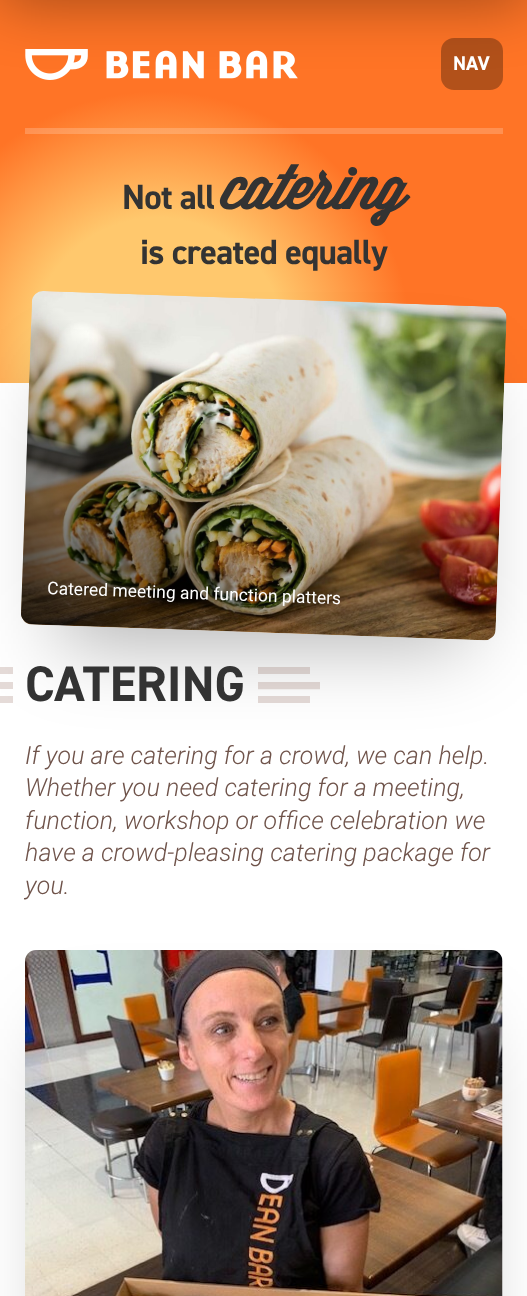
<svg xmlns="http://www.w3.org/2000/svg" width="527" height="1296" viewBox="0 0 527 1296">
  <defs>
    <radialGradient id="g1" gradientUnits="userSpaceOnUse" cx="158" cy="344" r="505"><stop offset="0" stop-color="#ffc86d"/><stop offset="0.25" stop-color="#ffc86d"/><stop offset="0.5" stop-color="#ff7426"/></radialGradient>
    <radialGradient id="g2" gradientUnits="userSpaceOnUse" cx="158" cy="344" r="505"><stop offset="0" stop-color="#ffd38a"/><stop offset="0.25" stop-color="#ffd38a"/><stop offset="0.5" stop-color="#ff9051"/></radialGradient>
    <linearGradient id="g3" gradientUnits="userSpaceOnUse" x1="99" y1="683" x2="429" y2="247"><stop offset="0" stop-color="#000" stop-opacity="0.8"/><stop offset="0.5" stop-color="#000" stop-opacity="0"/></linearGradient>
  </defs>
  <rect width="100%" height="100%" fill="#fff"/>
  <path d="M0 0h527v383H0z" fill="url(#g1)"/>
  <path d="M25 128h478v6H25z" fill="url(#g2)"/>
  <path d="M0 -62h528v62H0z" fill="#00000066" filter="blur(31px)"/>
  <image x="25" y="49" width="273" height="31" href="img/1.png"/>
  <rect x="441" y="38" width="62" height="52" rx="13" fill="#0000004d"/>
  <path d="M0 667h310v7H0z" fill="#e5dbd8"/>
  <path d="M-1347.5 685L320 685.5" fill="none" stroke="#e5dbd8" stroke-width="7.4"/>
  <path d="M0 696h310v7H0z" fill="#e5dbd8"/>
  <path d="M13 667h245v36H13z" fill="#fff"/>
  <path d="M60 378h408v266H60z" fill="#0000004d" filter="blur(39.5px)"/>
  <image x="21" y="291" width="486" height="350" href="img/2.png"/>
  <path d="M44 290L498 307C503 308 507 313 506 318L495 631C494 635 491 639 487 640L32 624C27 624 22 620 21 615L32 301C32 295 37 290 44 290Z" fill="url(#g3)"/>
  <path d="M59 1029h410v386H59z" fill="#0000004d" filter="blur(39.5px)"/>
  <image x="25" y="950" width="478" height="346" href="img/3.png"/>
  <text x="453" y="70" font-family="'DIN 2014'" font-size="20" font-weight="bold" fill="#fff">NAV</text>
  <text x="122" y="209" font-family="'DIN 2014'" font-size="35" font-weight="bold" letter-spacing="-0.75" fill="#333">Not all</text>
  <text x="222" y="209" font-family="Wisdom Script" font-size="60" font-weight="bold" letter-spacing="-0.75" fill="#333">catering</text>
  <text x="140" y="264" font-family="'DIN 2014'" font-size="35" font-weight="bold" letter-spacing="-0.75" fill="#333">is created equally</text>
  <text x="47" y="594" transform="rotate(2 47 594)" font-family="Roboto" font-size="17.5" fill="#fff">Catered meeting and function platters</text>
  <text x="25" y="701" font-family="'DIN 2014'" font-size="50" font-weight="bold" fill="#333">CATERING</text>
  <g font-family="Roboto" font-size="25" font-weight="300" font-style="italic" fill="#6f534a">
    <text x="25" y="764">If you are catering for a crowd, we can help.</text>
    <text x="25" y="796">Whether you need catering for a meeting,</text>
    <text x="25" y="829">function, workshop or office celebration we</text>
    <text x="25" y="861">have a crowd-pleasing catering package for</text>
    <text x="25" y="894">you.</text>
  </g>
</svg>
